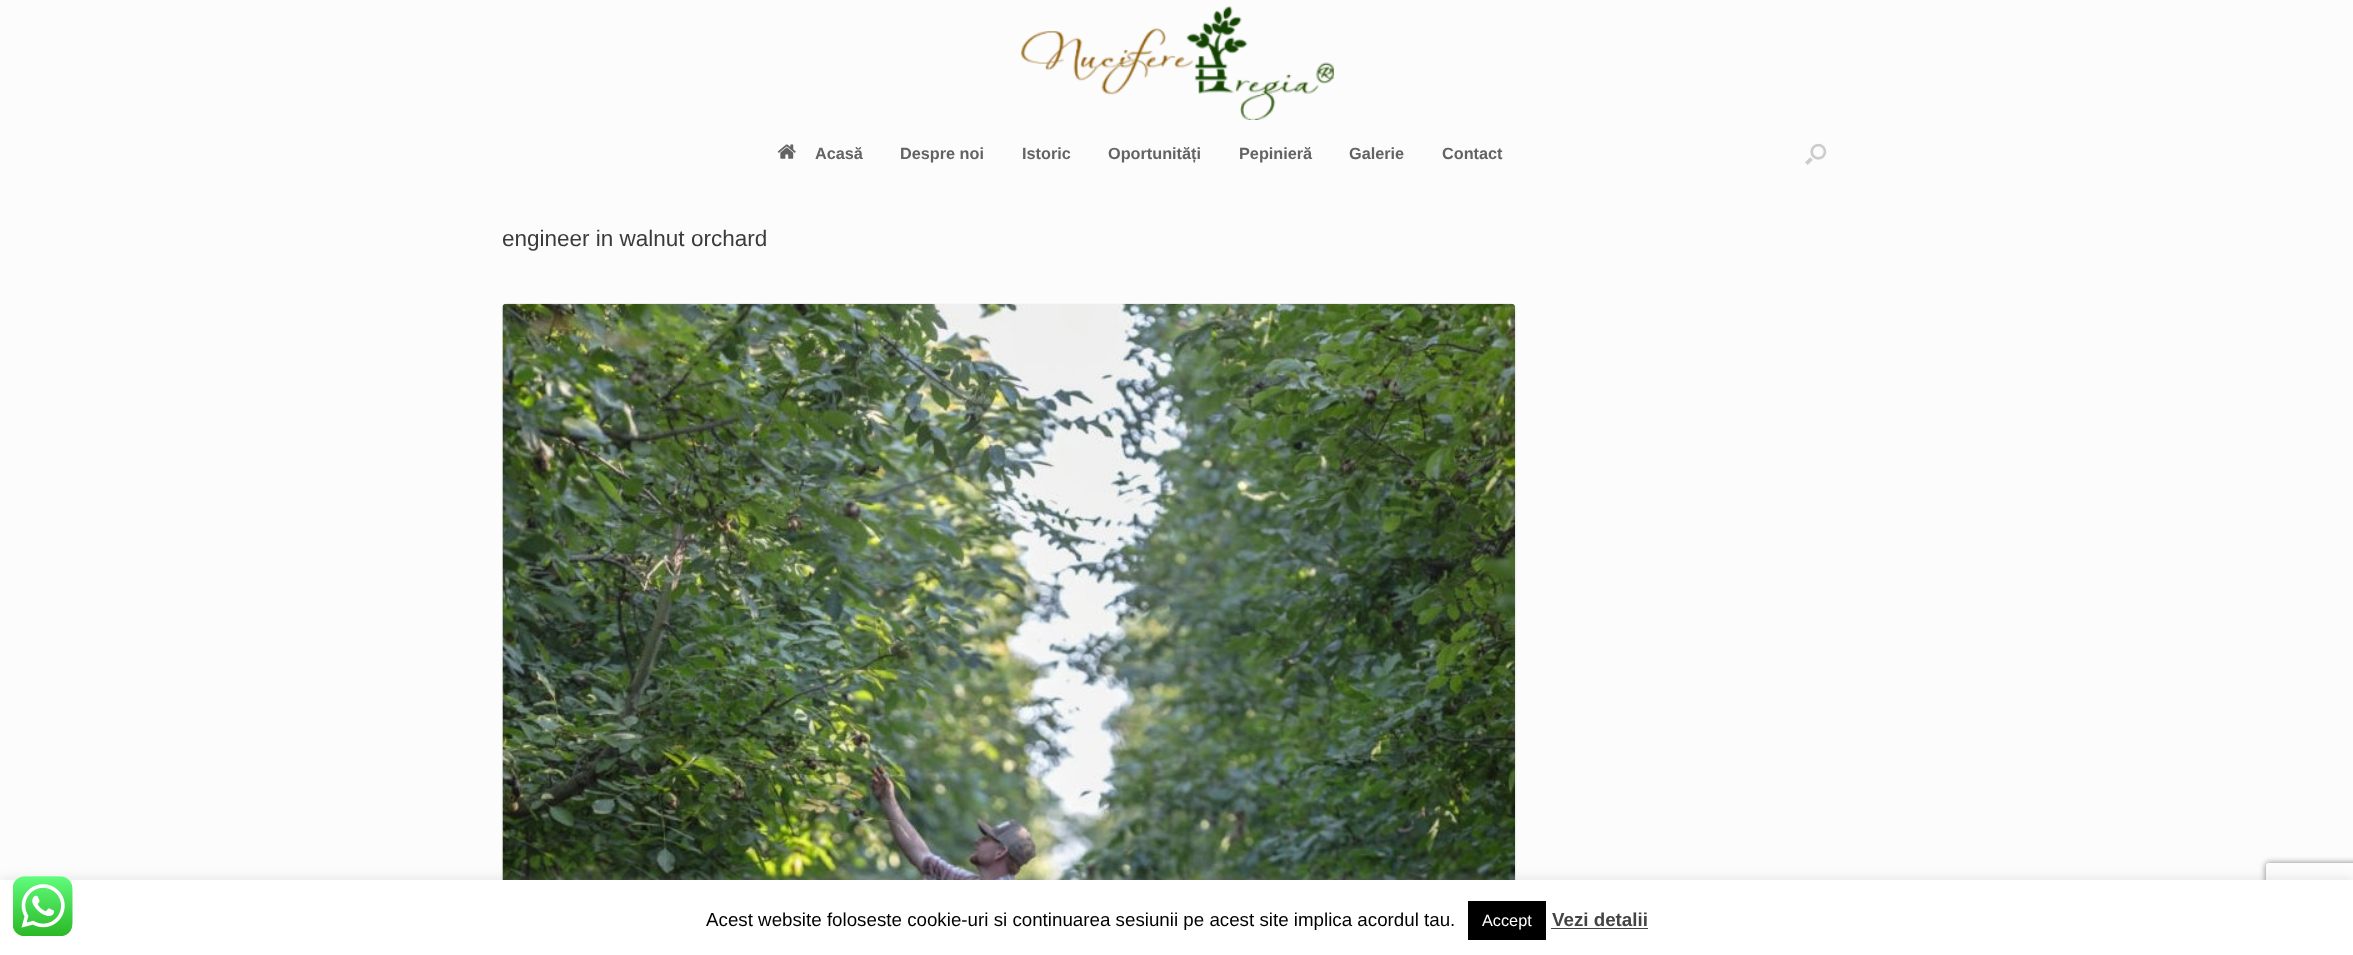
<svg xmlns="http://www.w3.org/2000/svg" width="2353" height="955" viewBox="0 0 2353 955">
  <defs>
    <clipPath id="clip1"><path d="M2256 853H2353V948H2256ZM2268.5 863H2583.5C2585 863 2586 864 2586 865.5V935.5C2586 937 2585 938 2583.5 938H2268.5C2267 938 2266 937 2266 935.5V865.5C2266 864 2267 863 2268.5 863Z" clip-rule="evenodd"/></clipPath>
  </defs>
  <rect width="100%" height="100%" fill="#fcfcfc"/>
  <image x="1021" y="6" width="313" height="114" href="img/1.png"/>
  <image x="777" y="144" width="19" height="15" href="img/2.png"/>
  <image x="1805" y="143" width="22" height="22" href="img/3.png"/>
  <rect x="503" y="305" width="1012" height="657" rx="4" fill="#0000002e" filter="blur(1px)"/>
  <image x="502" y="303" width="1013" height="577" href="img/4.png"/>
  <path d="M0 879h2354v75H0z" fill="#acabab4d" filter="blur(6px)"/>
  <g clip-path="url(#clip1)">
    <rect x="2266" y="863" width="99" height="75" rx="2.5" fill="#808080" filter="blur(3px)"/>
  </g>
  <path d="M0 880h2353v75H0z" fill="#fff"/>
  <image x="13" y="876" width="60" height="60" href="img/5.png"/>
  <path d="M1468 901h78v39H1468z" fill="#000"/>
  <path d="M1551 928h97v1H1551z" fill="#444"/>
  <g font-family="Liberation Sans" font-size="16.25" font-weight="bold" fill="#636363">
    <text x="815" y="159">Acasă</text>
    <text x="900" y="159">Despre noi</text>
    <text x="1022" y="159">Istoric</text>
    <text x="1108" y="159">Oportunități</text>
    <text x="1239" y="159">Pepinieră</text>
    <text x="1349" y="159">Galerie</text>
    <text x="1442" y="159">Contact</text>
  </g>
  <text x="502" y="246" font-family="Liberation Sans" font-size="22.5" fill="#3b3b3b">engineer in walnut orchard</text>
  <text x="706" y="926" font-family="Liberation Sans" font-size="18.75" fill="#000">Acest website foloseste cookie-uri si continuarea sesiunii pe acest site implica acordul tau.</text>
  <text x="1482" y="926" font-family="Liberation Sans" font-size="16.25" fill="#fff">Accept</text>
  <text x="1552" y="926" font-family="Liberation Sans" font-size="18.75" font-weight="bold" fill="#444">Vezi detalii</text>
</svg>
